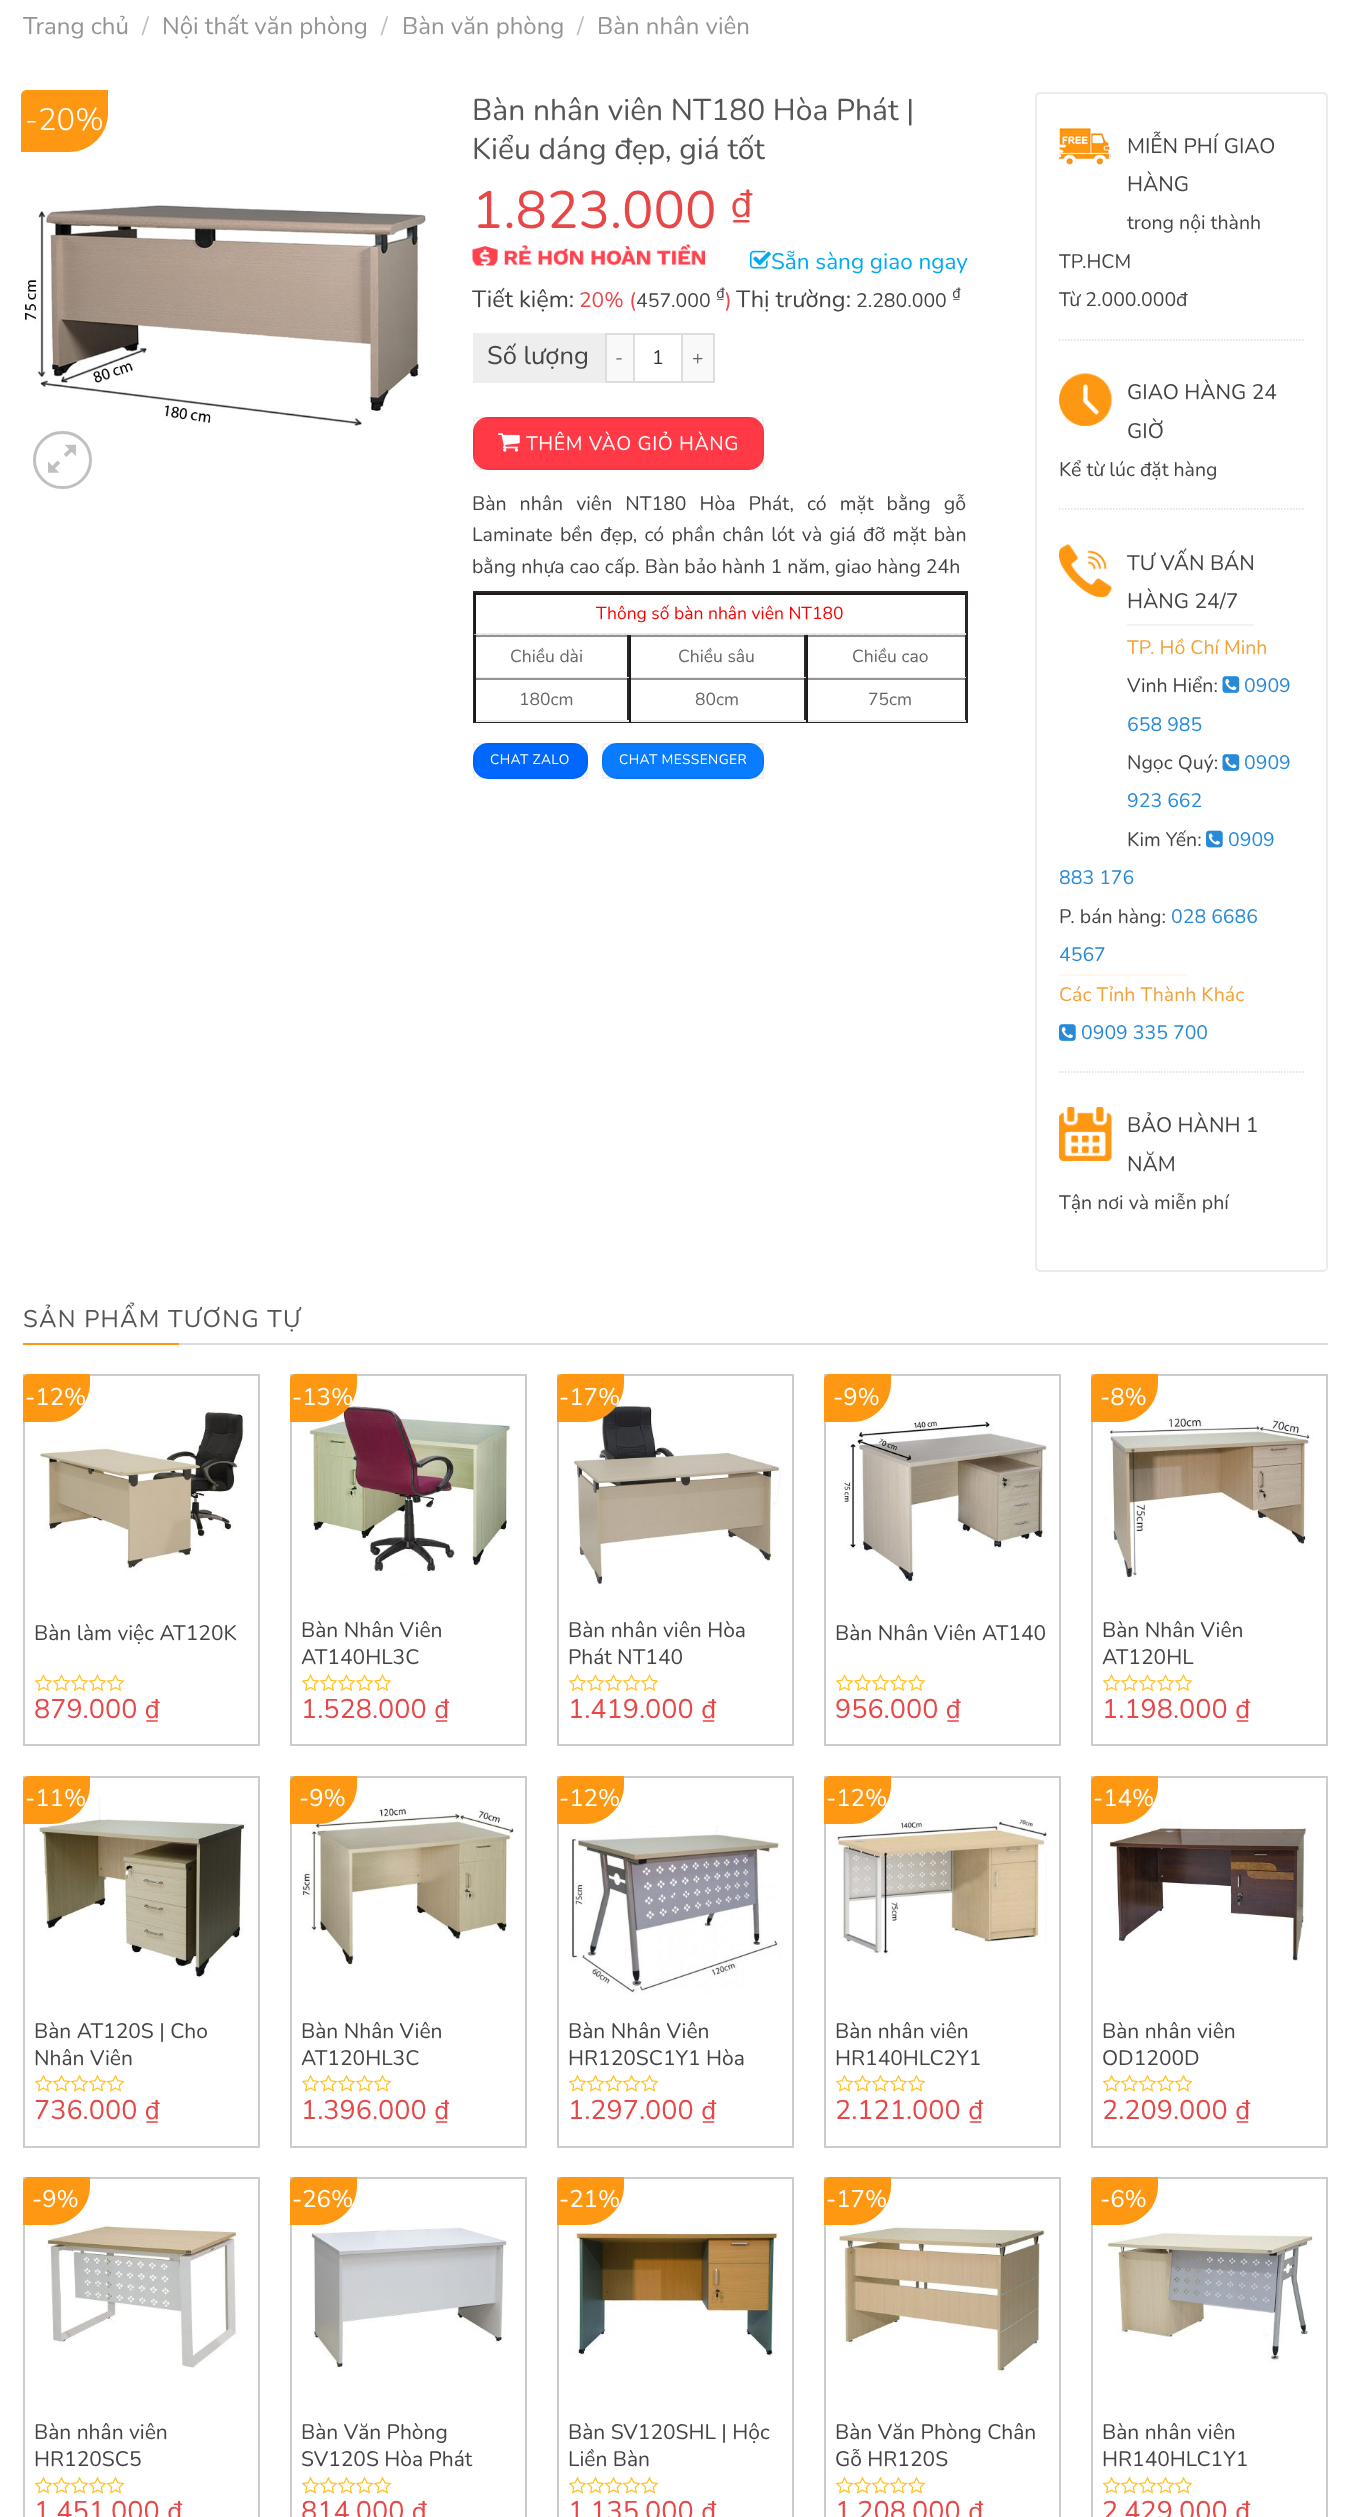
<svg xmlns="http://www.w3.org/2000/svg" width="1349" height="2517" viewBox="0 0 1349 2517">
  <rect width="100%" height="100%" fill="#fff"/>
  <path d="M27 90H108V113C108 134.5 90.5 152 69 152H21V96C21 92.5 23.5 90 27 90Z" fill="#fe9812"/>
  <image x="23" y="205" width="403" height="221" href="img/1.png"/>
  <rect x="34.5" y="432.5" width="56" height="55" rx="27.5" fill="none" stroke="#c0c0c0" stroke-width="3"/>
  <image x="48" y="444" width="28" height="29" href="img/2.png"/>
  <image x="750" y="250" width="21" height="19" href="img/3.png"/>
  <image x="472" y="244" width="233" height="22" href="img/4.png"/>
  <path d="M473 333h132v50H473z" fill="#eee"/>
  <path d="M607 335h26v46H607z" fill="#f9f9f9"/>
  <path d="M605 333h28v2H605z" fill="#ddd"/>
  <path d="M605 381h28v2H605z" fill="#ddd"/>
  <path d="M605 333h2v50H605z" fill="#ddd"/>
  <path d="M634 334h48v48H634z" fill="none" stroke="#ddd" stroke-width="2"/>
  <path d="M683 335h30v46H683z" fill="#f9f9f9"/>
  <path d="M683 333h31v2H683z" fill="#ddd"/>
  <path d="M713 333h2v50H713z" fill="#ddd"/>
  <path d="M683 381h31v2H683z" fill="#ddd"/>
  <rect x="473" y="417" width="291" height="53" rx="15" fill="#ff3945"/>
  <path d="M474 418h289v51H474z" fill="none" stroke="#0000000d" stroke-width="2"/>
  <image x="498" y="433" width="22" height="19" href="img/5.png"/>
  <path d="M474 592h493v130H474z" fill="none" stroke="#2c2525" stroke-width="2"/>
  <path d="M474 593h492v2H474z" fill="#1d1919"/>
  <path d="M965 593h1v42H965z" fill="#2c2525"/>
  <path d="M474 633h492v2H474z" fill="#ececec"/>
  <path d="M474 593h2v42H474z" fill="#1d1919"/>
  <path d="M474 635H966" fill="none" stroke="#ddd" stroke-width="1.5" stroke-dasharray="4.5 3"/>
  <path d="M474 635h492v2H474z" fill="#939393"/>
  <path d="M627 635h2v43H627z" fill="#2c2525"/>
  <path d="M474 677h155v1H474z" fill="#ececec"/>
  <path d="M474 635h2v43H474z" fill="#1d1919"/>
  <path d="M804 635h2v43H804z" fill="#2c2525"/>
  <path d="M629 677h177v1H629z" fill="#ececec"/>
  <path d="M629 635h2v43H629z" fill="#1d1919"/>
  <path d="M965 635h1v43H965z" fill="#2c2525"/>
  <path d="M806 677h160v1H806z" fill="#ececec"/>
  <path d="M806 635h2v43H806z" fill="#1d1919"/>
  <path d="M474 678h492v2H474z" fill="#939393"/>
  <path d="M627 678h2v44H627z" fill="#2c2525"/>
  <path d="M474 720h155v2H474z" fill="#ececec"/>
  <path d="M474 678h2v44H474z" fill="#1d1919"/>
  <path d="M804 678h2v44H804z" fill="#2c2525"/>
  <path d="M629 720h177v2H629z" fill="#ececec"/>
  <path d="M629 678h2v44H629z" fill="#1d1919"/>
  <path d="M965 678h1v44H965z" fill="#2c2525"/>
  <path d="M806 720h160v2H806z" fill="#ececec"/>
  <path d="M806 678h2v44H806z" fill="#1d1919"/>
  <rect x="473" y="743" width="115" height="36" rx="15" fill="#0068ff"/>
  <path d="M474 744h113v34H474z" fill="none" stroke="#0000000d" stroke-width="2"/>
  <rect x="602" y="743" width="162" height="36" rx="15" fill="#0a7cff"/>
  <path d="M603 744h160v34H603z" fill="none" stroke="#0000000d" stroke-width="2"/>
  <rect x="1036" y="93" width="291" height="1178" rx="4" fill="none" stroke="#ebebeb" stroke-width="2"/>
  <path d="M1059 340H1303.5" fill="none" stroke="#ddd" stroke-width="1.5" stroke-dasharray="1.5 1.5"/>
  <image x="1059" y="127" width="52" height="40" href="img/6.png"/>
  <path d="M1059 509H1303.5" fill="none" stroke="#ddd" stroke-width="1.5" stroke-dasharray="1.5 1.5"/>
  <image x="1059" y="373" width="53" height="53" href="img/7.png"/>
  <path d="M1059 1072H1303.5" fill="none" stroke="#ddd" stroke-width="1.5" stroke-dasharray="1.5 1.5"/>
  <image x="1059" y="544" width="53" height="53" href="img/8.png"/>
  <path d="M1127 624h127v2H1127z" fill="#f2f2f2"/>
  <image x="1222" y="676" width="18" height="17" href="img/9.png"/>
  <image x="1222" y="754" width="18" height="17" href="img/9.png"/>
  <image x="1206" y="830" width="17" height="18" href="img/10.png"/>
  <path d="M1059 974h128v2H1059z" fill="#fef6eb"/>
  <image x="1059" y="1024" width="17" height="17" href="img/11.png"/>
  <image x="1059" y="1107" width="53" height="54" href="img/12.png"/>
  <path d="M179 1343h1149v2H179z" fill="#ddd"/>
  <path d="M23 1343h156v2H23z" fill="#fe9812"/>
  <path d="M24 1375h235v370H24z" fill="none" stroke="#ccc" stroke-width="2"/>
  <image x="38" y="1411" width="207" height="161" href="img/13.png"/>
  <path d="M29 1374H90V1383C90 1404.5 72.5 1422 51 1422H23V1380C23 1376.5 25.5 1374 29 1374Z" fill="#fe9812"/>
  <image x="35" y="1674" width="90" height="18" href="img/14.png"/>
  <path d="M291 1375h235v370H291z" fill="none" stroke="#ccc" stroke-width="2"/>
  <image x="302" y="1406" width="210" height="170" href="img/15.png"/>
  <path d="M296 1374H357V1383C357 1404.5 339.5 1422 318 1422H290V1380C290 1376.5 292.5 1374 296 1374Z" fill="#fe9812"/>
  <image x="302" y="1674" width="90" height="18" href="img/14.png"/>
  <path d="M558 1375h235v370H558z" fill="none" stroke="#ccc" stroke-width="2"/>
  <image x="573" y="1406" width="209" height="180" href="img/16.png"/>
  <path d="M563 1374H624V1383C624 1404.5 606.5 1422 585 1422H557V1380C557 1376.5 559.5 1374 563 1374Z" fill="#fe9812"/>
  <image x="569" y="1674" width="90" height="18" href="img/14.png"/>
  <path d="M825 1375h235v370H825z" fill="none" stroke="#ccc" stroke-width="2"/>
  <image x="841" y="1417" width="207" height="166" href="img/17.png"/>
  <path d="M830 1374H891V1383C891 1404.5 873.5 1422 852 1422H824V1380C824 1376.5 826.5 1374 830 1374Z" fill="#fe9812"/>
  <image x="836" y="1674" width="90" height="18" href="img/14.png"/>
  <path d="M1092 1375h235v370H1092z" fill="none" stroke="#ccc" stroke-width="2"/>
  <image x="1103" y="1417" width="210" height="161" href="img/18.png"/>
  <path d="M1097 1374H1158V1383C1158 1404.5 1140.5 1422 1119 1422H1091V1380C1091 1376.5 1093.5 1374 1097 1374Z" fill="#fe9812"/>
  <image x="1103" y="1674" width="90" height="18" href="img/14.png"/>
  <path d="M24 1777h235v370H24z" fill="none" stroke="#ccc" stroke-width="2"/>
  <image x="35" y="1796" width="212" height="182" href="img/19.png"/>
  <path d="M29 1776H90V1785C90 1806.5 72.5 1824 51 1824H23V1782C23 1778.5 25.5 1776 29 1776Z" fill="#fe9812"/>
  <image x="35" y="2075" width="90" height="17" href="img/20.png"/>
  <path d="M291 1777h235v370H291z" fill="none" stroke="#ccc" stroke-width="2"/>
  <image x="302" y="1808" width="212" height="159" href="img/21.png"/>
  <path d="M296 1776H357V1785C357 1806.5 339.5 1824 318 1824H290V1782C290 1778.5 292.5 1776 296 1776Z" fill="#fe9812"/>
  <image x="302" y="2075" width="90" height="17" href="img/20.png"/>
  <path d="M558 1777h235v370H558z" fill="none" stroke="#ccc" stroke-width="2"/>
  <path d="M563 1776H624V1785C624 1806.5 606.5 1824 585 1824H557V1782C557 1778.5 559.5 1776 563 1776Z" fill="#fe9812"/>
  <image x="569" y="1825" width="212" height="170" href="img/22.png"/>
  <image x="569" y="2075" width="90" height="17" href="img/20.png"/>
  <path d="M825 1777h235v370H825z" fill="none" stroke="#ccc" stroke-width="2"/>
  <image x="836" y="1819" width="212" height="136" href="img/23.png"/>
  <path d="M830 1776H891V1785C891 1806.5 873.5 1824 852 1824H824V1782C824 1778.5 826.5 1776 830 1776Z" fill="#fe9812"/>
  <image x="836" y="2075" width="90" height="17" href="img/20.png"/>
  <path d="M1092 1777h235v370H1092z" fill="none" stroke="#ccc" stroke-width="2"/>
  <image x="1103" y="1818" width="204" height="143" href="img/24.png"/>
  <path d="M1097 1776H1158V1785C1158 1806.5 1140.5 1824 1119 1824H1091V1782C1091 1778.5 1093.5 1776 1097 1776Z" fill="#fe9812"/>
  <image x="1103" y="2075" width="90" height="17" href="img/20.png"/>
  <path d="M24 2178h235v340H24z" fill="none" stroke="#ccc" stroke-width="2"/>
  <image x="46" y="2222" width="193" height="147" href="img/25.png"/>
  <path d="M29 2177H90V2186C90 2207.5 72.5 2225 51 2225H23V2183C23 2179.5 25.5 2177 29 2177Z" fill="#fe9812"/>
  <image x="35" y="2477" width="90" height="17" href="img/20.png"/>
  <path d="M291 2178h235v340H291z" fill="none" stroke="#ccc" stroke-width="2"/>
  <path d="M296 2177H357V2186C357 2207.5 339.5 2225 318 2225H290V2183C290 2179.5 292.5 2177 296 2177Z" fill="#fe9812"/>
  <image x="310" y="2226" width="197" height="143" href="img/26.png"/>
  <image x="302" y="2477" width="90" height="17" href="img/20.png"/>
  <path d="M558 2178h235v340H558z" fill="none" stroke="#ccc" stroke-width="2"/>
  <path d="M563 2177H624V2186C624 2207.5 606.5 2225 585 2225H557V2183C557 2179.5 559.5 2177 563 2177Z" fill="#fe9812"/>
  <image x="569" y="2231" width="210" height="126" href="img/27.png"/>
  <image x="569" y="2477" width="90" height="17" href="img/20.png"/>
  <path d="M825 2178h235v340H825z" fill="none" stroke="#ccc" stroke-width="2"/>
  <image x="836" y="2222" width="210" height="152" href="img/28.png"/>
  <path d="M830 2177H891V2186C891 2207.5 873.5 2225 852 2225H824V2183C824 2179.5 826.5 2177 830 2177Z" fill="#fe9812"/>
  <image x="836" y="2477" width="90" height="17" href="img/20.png"/>
  <path d="M1092 2178h235v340H1092z" fill="none" stroke="#ccc" stroke-width="2"/>
  <path d="M1097 2177H1158V2186C1158 2207.5 1140.5 2225 1119 2225H1091V2183C1091 2179.5 1093.5 2177 1097 2177Z" fill="#fe9812"/>
  <image x="1106" y="2231" width="209" height="132" href="img/29.png"/>
  <image x="1103" y="2477" width="90" height="17" href="img/20.png"/>
  <text x="23" y="34" font-family="Nunito" font-size="24" fill="#949494">Trang chủ</text>
  <text x="142" y="34" font-family="Nunito" font-size="24" fill="#bebebe">/</text>
  <text x="162" y="34" font-family="Nunito" font-size="24" fill="#949494">Nội thất văn phòng</text>
  <text x="381" y="34" font-family="Nunito" font-size="24" fill="#bebebe">/</text>
  <text x="402" y="34" font-family="Nunito" font-size="24" fill="#949494">Bàn văn phòng</text>
  <text x="577" y="34" font-family="Nunito" font-size="24" fill="#bebebe">/</text>
  <text x="597" y="34" font-family="Nunito" font-size="24" fill="#949494">Bàn nhân viên</text>
  <text x="25" y="130" font-family="Nunito" font-size="31" font-weight="300" fill="#fff">-20%</text>
  <g font-family="Nunito" font-size="30" fill="#555">
    <text x="472" y="120">Bàn nhân viên NT180 Hòa Phát |</text>
    <text x="472" y="159">Kiểu dáng đẹp, giá tốt</text>
  </g>
  <text x="472" y="228" font-family="Nunito" font-size="52.5" fill="#e74847">1.823.000</text>
  <text x="730" y="217" font-family="Nunito" font-size="39" fill="#e74847">₫</text>
  <text x="771" y="269" font-family="Nunito" font-size="22.5" fill="#00abf0">Sẵn sàng giao ngay</text>
  <text x="472" y="307" font-family="Nunito" font-size="23.5" fill="#444">Tiết kiệm:</text>
  <text x="579" y="307" font-family="Nunito" font-size="21" fill="#e74847">20% (</text>
  <text x="636" y="307" font-family="Nunito" font-size="19.5" fill="#444">457.000</text>
  <text x="716" y="298" font-family="Nunito" font-size="15" fill="#444">₫</text>
  <text x="725" y="307" font-family="Nunito" font-size="21" fill="#e74847">)</text>
  <text x="736" y="307" font-family="Nunito" font-size="23.5" fill="#444">Thị trường:</text>
  <text x="856" y="307" font-family="Nunito" font-size="19.5" fill="#444">2.280.000</text>
  <text x="952" y="298" font-family="Nunito" font-size="15" fill="#444">₫</text>
  <text x="487" y="364" font-family="Nunito" font-size="25.5" fill="#444">Số lượng</text>
  <text x="615" y="364" font-family="Nunito" font-size="19" letter-spacing="1" fill="#666">-</text>
  <text x="652" y="364" font-family="Nunito" font-size="19.5" fill="#333">1</text>
  <text x="692" y="364" font-family="Nunito" font-size="19" letter-spacing="1" fill="#666">+</text>
  <text x="526" y="450" font-family="Nunito" font-size="19.5" letter-spacing="0.6" fill="#fff">THÊM VÀO GIỎ HÀNG</text>
  <g font-family="Nunito" font-size="19.5" fill="#444">
    <text x="472" y="510" word-spacing="8">Bàn nhân viên NT180 Hòa Phát, có mặt bằng gỗ</text>
    <text x="472" y="541" word-spacing="2.25">Laminate bền đẹp, có phần chân lót và giá đỡ mặt bàn</text>
    <text x="472" y="573">bằng nhựa cao cấp. Bàn bảo hành 1 năm, giao hàng 24h</text>
  </g>
  <text x="596" y="619" font-family="Nunito" font-size="17.5" fill="#f00">Thông số bàn nhân viên NT180</text>
  <g font-family="Nunito" font-size="17.5" fill="#666">
    <text x="510" y="662">Chiều dài</text>
    <text x="678" y="662">Chiều sâu</text>
    <text x="852" y="662">Chiều cao</text>
    <text x="519" y="705">180cm</text>
    <text x="695" y="705">80cm</text>
    <text x="868" y="705">75cm</text>
  </g>
  <g font-family="Nunito" font-size="13.75" letter-spacing="0.4" fill="#fff">
    <text x="490" y="764">CHAT ZALO</text>
    <text x="619" y="764">CHAT MESSENGER</text>
  </g>
  <g font-family="Nunito" font-size="21" fill="#444">
    <text x="1127" y="153">MIỄN PHÍ GIAO</text>
    <text x="1127" y="191">HÀNG</text>
  </g>
  <g font-family="Nunito" font-size="19.5" fill="#444">
    <text x="1127" y="229">trong nội thành</text>
    <text x="1059" y="268">TP.HCM</text>
    <text x="1059" y="306">Từ 2.000.000đ</text>
  </g>
  <g font-family="Nunito" font-size="21" fill="#444">
    <text x="1127" y="399">GIAO HÀNG 24</text>
    <text x="1127" y="438">GIỜ</text>
  </g>
  <text x="1059" y="476" font-family="Nunito" font-size="19.5" fill="#444">Kể từ lúc đặt hàng</text>
  <g font-family="Nunito" font-size="21" fill="#444">
    <text x="1127" y="570">TƯ VẤN BÁN</text>
    <text x="1127" y="608">HÀNG 24/7</text>
  </g>
  <text x="1127" y="654" font-family="Nunito" font-size="19.5" fill="#f4a137">TP. Hồ Chí Minh</text>
  <text x="1127" y="692" font-family="Nunito" font-size="19.5" fill="#444">Vinh Hiển:</text>
  <g font-family="Nunito" font-size="19.5" fill="#288ad6">
    <text x="1244" y="692">0909</text>
    <text x="1127" y="731">658 985</text>
  </g>
  <text x="1127" y="769" font-family="Nunito" font-size="19.5" fill="#444">Ngọc Quý:</text>
  <g font-family="Nunito" font-size="19.5" fill="#288ad6">
    <text x="1244" y="769">0909</text>
    <text x="1127" y="807">923 662</text>
  </g>
  <text x="1127" y="846" font-family="Nunito" font-size="19.5" fill="#444">Kim Yến:</text>
  <g font-family="Nunito" font-size="19.5" fill="#288ad6">
    <text x="1228" y="846">0909</text>
    <text x="1059" y="884">883 176</text>
  </g>
  <text x="1059" y="923" font-family="Nunito" font-size="19.5" fill="#444">P. bán hàng:</text>
  <g font-family="Nunito" font-size="19.5" fill="#288ad6">
    <text x="1171" y="923">028 6686</text>
    <text x="1059" y="961">4567</text>
  </g>
  <text x="1059" y="1001" font-family="Nunito" font-size="19.5" fill="#f4a137">Các Tỉnh Thành Khác</text>
  <text x="1081" y="1039" font-family="Nunito" font-size="19.5" fill="#288ad6">0909 335 700</text>
  <g font-family="Nunito" font-size="21" fill="#444">
    <text x="1127" y="1132">BẢO HÀNH 1</text>
    <text x="1127" y="1171">NĂM</text>
  </g>
  <text x="1059" y="1209" font-family="Nunito" font-size="19.5" fill="#444">Tận nơi và miễn phí</text>
  <text x="23" y="1327" font-family="Nunito" font-size="24" letter-spacing="1.25" fill="#555">SẢN PHẨM TƯƠNG TỰ</text>
  <text x="25" y="1405" font-family="Nunito" font-size="24" fill="#fff">-12%</text>
  <text x="34" y="1640" font-family="Nunito" font-size="21" fill="#444">Bàn làm việc AT120K</text>
  <text x="34" y="1718" font-family="Nunito" font-size="27" fill="#e74847">879.000 ₫</text>
  <text x="292" y="1405" font-family="Nunito" font-size="24" fill="#fff">-13%</text>
  <g font-family="Nunito" font-size="21" fill="#444">
    <text x="301" y="1637">Bàn Nhân Viên</text>
    <text x="301" y="1664">AT140HL3C</text>
  </g>
  <text x="301" y="1718" font-family="Nunito" font-size="27" fill="#e74847">1.528.000 ₫</text>
  <text x="559" y="1405" font-family="Nunito" font-size="24" fill="#fff">-17%</text>
  <g font-family="Nunito" font-size="21" fill="#444">
    <text x="568" y="1637">Bàn nhân viên Hòa</text>
    <text x="568" y="1664">Phát NT140</text>
  </g>
  <text x="568" y="1718" font-family="Nunito" font-size="27" fill="#e74847">1.419.000 ₫</text>
  <text x="833" y="1405" font-family="Nunito" font-size="24" fill="#fff">-9%</text>
  <text x="835" y="1640" font-family="Nunito" font-size="21" fill="#444">Bàn Nhân Viên AT140</text>
  <text x="835" y="1718" font-family="Nunito" font-size="27" fill="#e74847">956.000 ₫</text>
  <text x="1100" y="1405" font-family="Nunito" font-size="24" fill="#fff">-8%</text>
  <g font-family="Nunito" font-size="21" fill="#444">
    <text x="1102" y="1637">Bàn Nhân Viên</text>
    <text x="1102" y="1664">AT120HL</text>
  </g>
  <text x="1102" y="1718" font-family="Nunito" font-size="27" fill="#e74847">1.198.000 ₫</text>
  <text x="25" y="1806" font-family="Nunito" font-size="24" fill="#fff">-11%</text>
  <g font-family="Nunito" font-size="21" fill="#444">
    <text x="34" y="2038">Bàn AT120S | Cho</text>
    <text x="34" y="2065">Nhân Viên</text>
  </g>
  <text x="34" y="2119" font-family="Nunito" font-size="27" fill="#e74847">736.000 ₫</text>
  <text x="299" y="1806" font-family="Nunito" font-size="24" fill="#fff">-9%</text>
  <g font-family="Nunito" font-size="21" fill="#444">
    <text x="301" y="2038">Bàn Nhân Viên</text>
    <text x="301" y="2065">AT120HL3C</text>
  </g>
  <text x="301" y="2119" font-family="Nunito" font-size="27" fill="#e74847">1.396.000 ₫</text>
  <text x="559" y="1806" font-family="Nunito" font-size="24" fill="#fff">-12%</text>
  <g font-family="Nunito" font-size="21" fill="#444">
    <text x="568" y="2038">Bàn Nhân Viên</text>
    <text x="568" y="2065">HR120SC1Y1 Hòa</text>
  </g>
  <text x="568" y="2119" font-family="Nunito" font-size="27" fill="#e74847">1.297.000 ₫</text>
  <text x="826" y="1806" font-family="Nunito" font-size="24" fill="#fff">-12%</text>
  <g font-family="Nunito" font-size="21" fill="#444">
    <text x="835" y="2038">Bàn nhân viên</text>
    <text x="835" y="2065">HR140HLC2Y1</text>
  </g>
  <text x="835" y="2119" font-family="Nunito" font-size="27" fill="#e74847">2.121.000 ₫</text>
  <text x="1093" y="1806" font-family="Nunito" font-size="24" fill="#fff">-14%</text>
  <g font-family="Nunito" font-size="21" fill="#444">
    <text x="1102" y="2038">Bàn nhân viên</text>
    <text x="1102" y="2065">OD1200D</text>
  </g>
  <text x="1102" y="2119" font-family="Nunito" font-size="27" fill="#e74847">2.209.000 ₫</text>
  <text x="32" y="2207" font-family="Nunito" font-size="24" fill="#fff">-9%</text>
  <g font-family="Nunito" font-size="21" fill="#444">
    <text x="34" y="2439">Bàn nhân viên</text>
    <text x="34" y="2466">HR120SC5</text>
  </g>
  <text x="34" y="2520" font-family="Nunito" font-size="27" fill="#e74847">1.451.000 ₫</text>
  <text x="292" y="2207" font-family="Nunito" font-size="24" fill="#fff">-26%</text>
  <g font-family="Nunito" font-size="21" fill="#444">
    <text x="301" y="2439">Bàn Văn Phòng</text>
    <text x="301" y="2466">SV120S Hòa Phát</text>
  </g>
  <text x="301" y="2520" font-family="Nunito" font-size="27" fill="#e74847">814.000 ₫</text>
  <text x="559" y="2207" font-family="Nunito" font-size="24" fill="#fff">-21%</text>
  <g font-family="Nunito" font-size="21" fill="#444">
    <text x="568" y="2439">Bàn SV120SHL | Hộc</text>
    <text x="568" y="2466">Liền Bàn</text>
  </g>
  <text x="568" y="2520" font-family="Nunito" font-size="27" fill="#e74847">1.135.000 ₫</text>
  <text x="826" y="2207" font-family="Nunito" font-size="24" fill="#fff">-17%</text>
  <g font-family="Nunito" font-size="21" fill="#444">
    <text x="835" y="2439">Bàn Văn Phòng Chân</text>
    <text x="835" y="2466">Gỗ HR120S</text>
  </g>
  <text x="835" y="2520" font-family="Nunito" font-size="27" fill="#e74847">1.208.000 ₫</text>
  <text x="1100" y="2207" font-family="Nunito" font-size="24" fill="#fff">-6%</text>
  <g font-family="Nunito" font-size="21" fill="#444">
    <text x="1102" y="2439">Bàn nhân viên</text>
    <text x="1102" y="2466">HR140HLC1Y1</text>
  </g>
  <text x="1102" y="2520" font-family="Nunito" font-size="27" fill="#e74847">2.429.000 ₫</text>
</svg>
